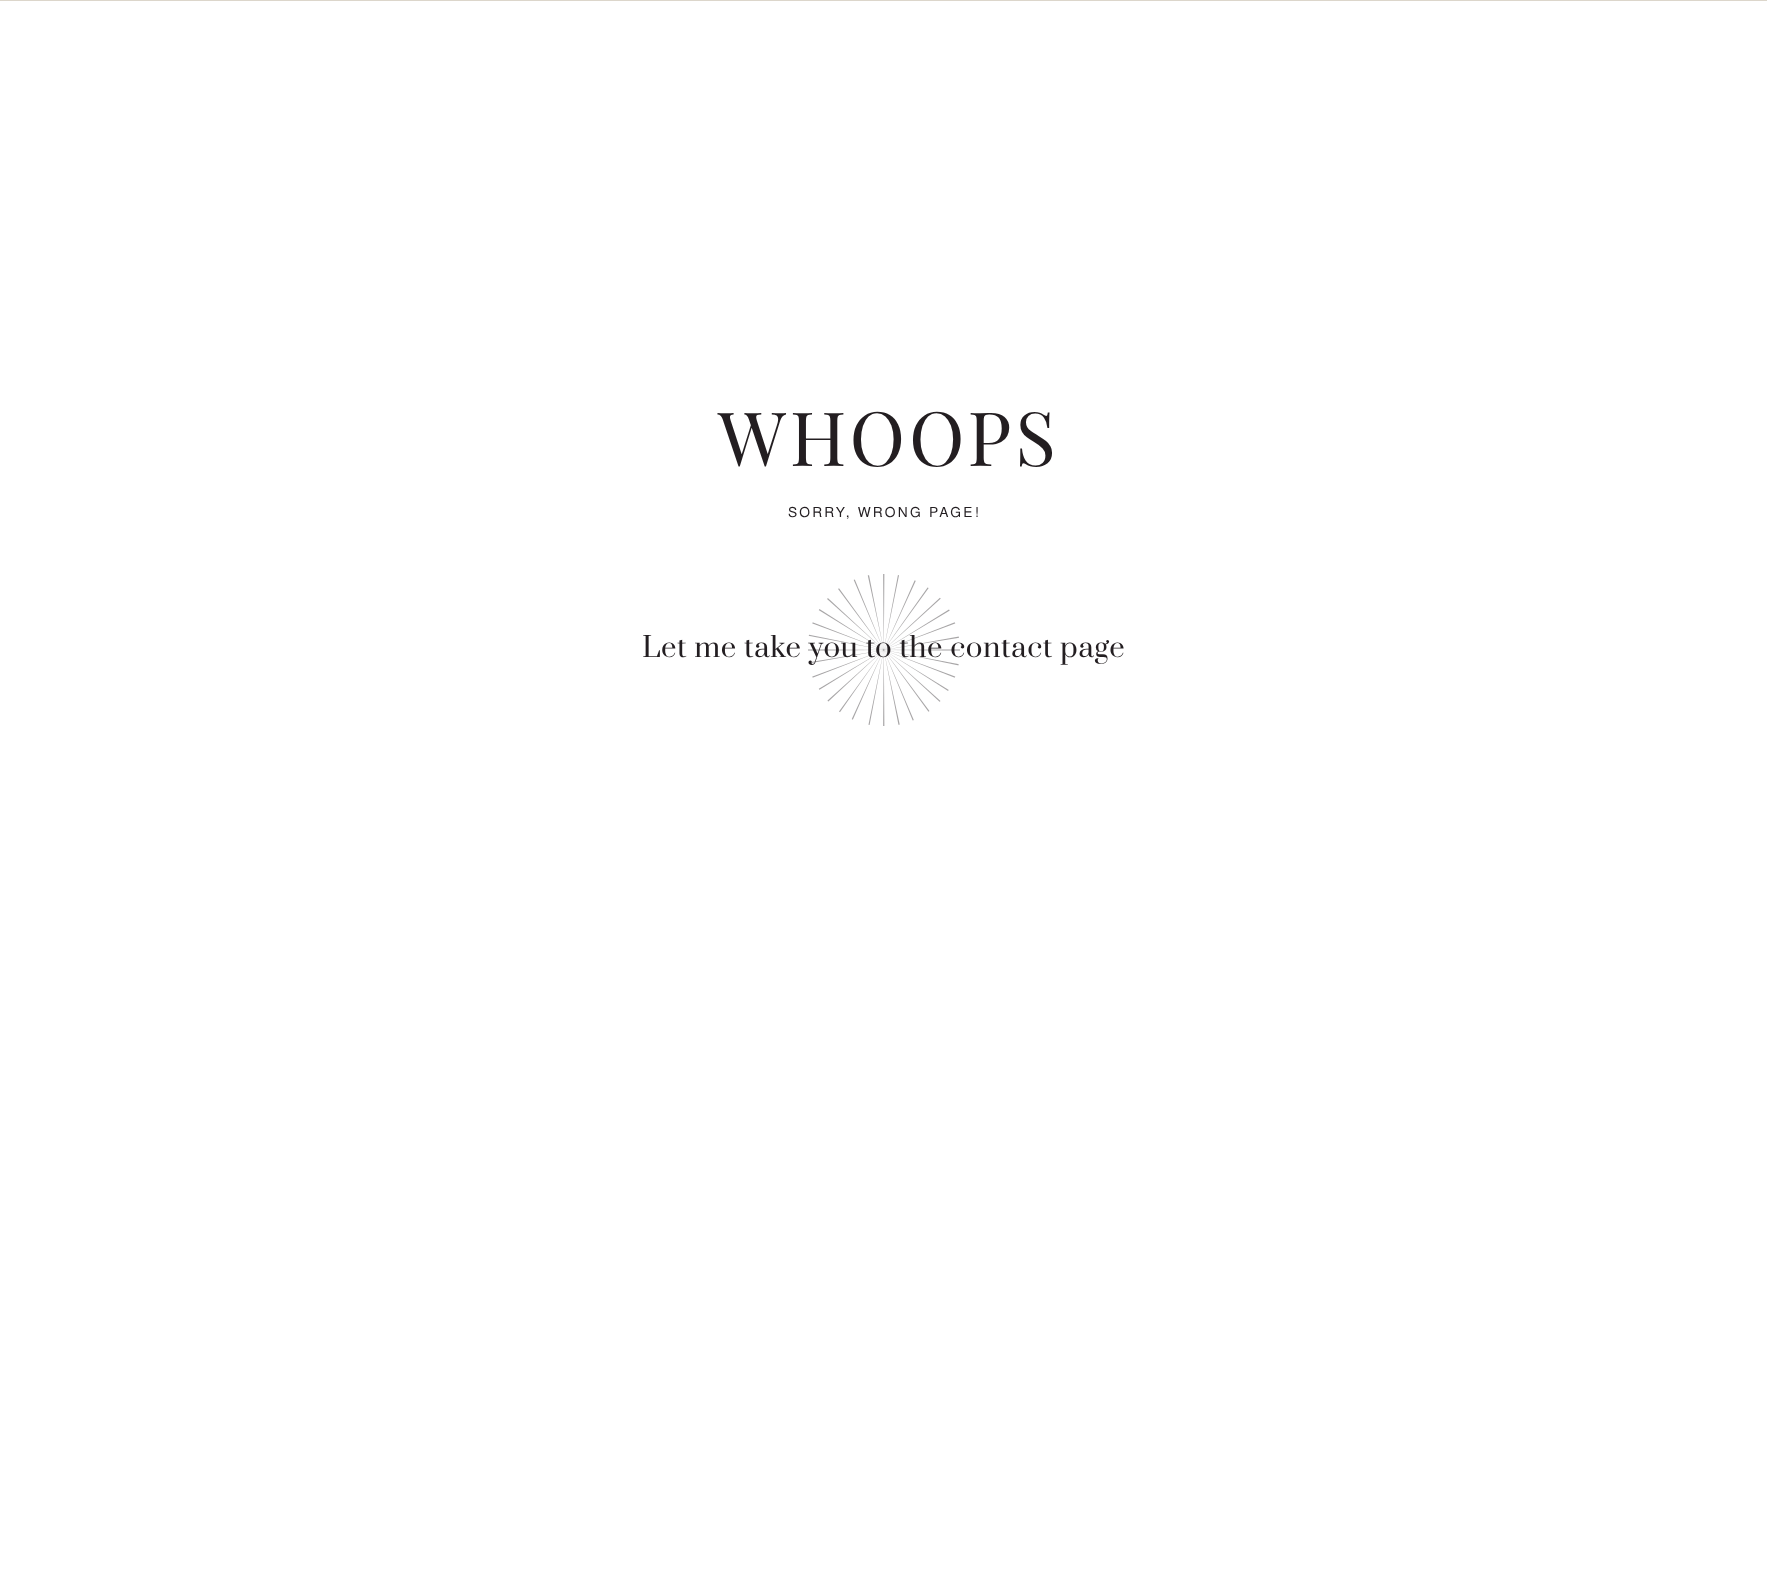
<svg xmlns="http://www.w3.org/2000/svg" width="1767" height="1581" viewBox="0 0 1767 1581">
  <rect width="100%" height="100%" fill="#dcd6cb"/>
  <path d="M0 1h1767v1580H0z" fill="#fff"/>
  <image x="808" y="574" width="152" height="152" href="img/1.png"/>
  <text x="718" y="466" font-family="Playfair Display SC" font-size="75" letter-spacing="3.75" fill="#231e21">WHOOPS</text>
  <text x="788" y="517" font-family="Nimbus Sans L" font-size="13.75" letter-spacing="2.25" fill="#231e21">SORRY, WRONG PAGE!</text>
  <text x="642" y="657" font-family="Prata" font-size="27.5" letter-spacing="0.55" fill="#231e21">Let me take you to the contact page</text>
</svg>
